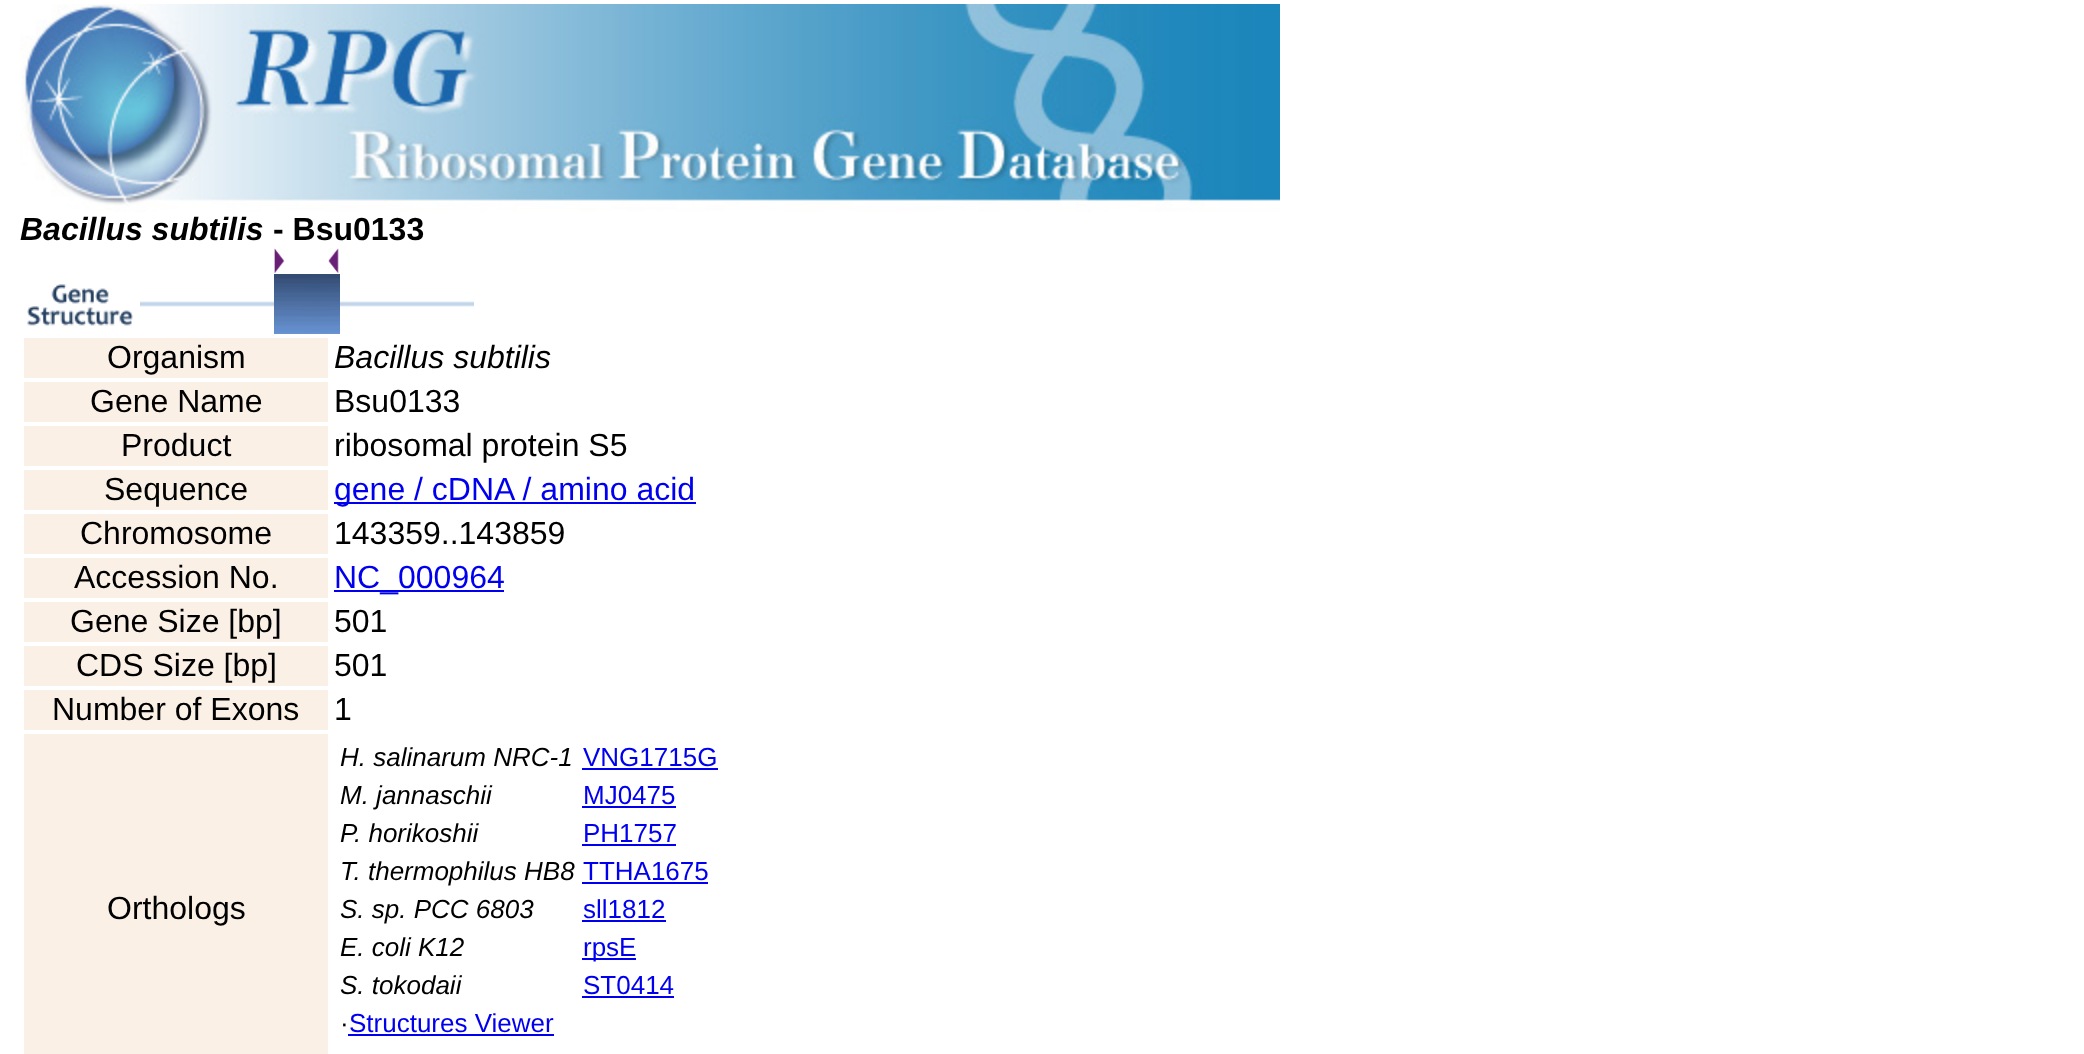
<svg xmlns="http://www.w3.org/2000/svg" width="2084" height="1054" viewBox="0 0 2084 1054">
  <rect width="100%" height="100%" fill="#fff"/>
  <image x="20" y="4" width="1260" height="208" href="img/1.png"/>
  <image x="274" y="248" width="11" height="25" href="img/2.png"/>
  <image x="328" y="248" width="11" height="25" href="img/3.png"/>
  <image x="27" y="284" width="106" height="42" href="img/4.png"/>
  <image x="140" y="301" width="134" height="6" href="img/5.png"/>
  <image x="274" y="274" width="66" height="60" href="img/6.png"/>
  <image x="340" y="301" width="134" height="6" href="img/5.png"/>
  <path d="M24 338h304v40H24z" fill="#faf0e6"/>
  <path d="M24 382h304v40H24z" fill="#faf0e6"/>
  <path d="M24 426h304v40H24z" fill="#faf0e6"/>
  <path d="M24 470h304v40H24z" fill="#faf0e6"/>
  <path d="M334 502h362v2H334z" fill="#00e"/>
  <path d="M24 514h304v40H24z" fill="#faf0e6"/>
  <path d="M24 558h304v40H24z" fill="#faf0e6"/>
  <path d="M334 590h170v2H334z" fill="#00e"/>
  <path d="M24 602h304v40H24z" fill="#faf0e6"/>
  <path d="M24 646h304v40H24z" fill="#faf0e6"/>
  <path d="M24 690h304v40H24z" fill="#faf0e6"/>
  <path d="M24 734h304v320H24z" fill="#faf0e6"/>
  <path d="M582 768h136v2H582z" fill="#00e"/>
  <path d="M582 806h94v2H582z" fill="#00e"/>
  <path d="M582 844h94v2H582z" fill="#00e"/>
  <path d="M582 882h126v2H582z" fill="#00e"/>
  <path d="M582 920h84v2H582z" fill="#00e"/>
  <path d="M582 958h54v2H582z" fill="#00e"/>
  <path d="M582 996h92v2H582z" fill="#00e"/>
  <path d="M348 1034h206v2H348z" fill="#00e"/>
  <text x="20" y="240" font-family="Liberation Sans" font-size="32" font-weight="bold" font-style="italic" fill="#000">Bacillus subtilis</text>
  <text x="273" y="240" font-family="Liberation Sans" font-size="32" font-weight="bold" fill="#000">- Bsu0133</text>
  <text x="107" y="368" font-family="Liberation Sans" font-size="32" fill="#000">Organism</text>
  <text x="334" y="368" font-family="Liberation Sans" font-size="32" font-style="italic" fill="#000">Bacillus subtilis</text>
  <g font-family="Liberation Sans" font-size="32" fill="#000">
    <text x="90" y="412">Gene Name</text>
    <text x="334" y="412">Bsu0133</text>
    <text x="121" y="456">Product</text>
    <text x="334" y="456">ribosomal protein S5</text>
    <text x="104" y="500">Sequence</text>
  </g>
  <text x="334" y="500" font-family="Liberation Sans" font-size="32" fill="#00e">gene / cDNA / amino acid</text>
  <g font-family="Liberation Sans" font-size="32" fill="#000">
    <text x="80" y="544">Chromosome</text>
    <text x="334" y="544">143359..143859</text>
    <text x="74" y="588">Accession No.</text>
  </g>
  <text x="334" y="588" font-family="Liberation Sans" font-size="32" fill="#00e">NC_000964</text>
  <g font-family="Liberation Sans" font-size="32" fill="#000">
    <text x="70" y="632">Gene Size [bp]</text>
    <text x="334" y="632">501</text>
    <text x="76" y="676">CDS Size [bp]</text>
    <text x="334" y="676">501</text>
    <text x="52" y="720">Number of Exons</text>
    <text x="334" y="720">1</text>
    <text x="107" y="919">Orthologs</text>
  </g>
  <text x="340" y="766" font-family="Liberation Sans" font-size="26" font-style="italic" fill="#000">H. salinarum NRC-1</text>
  <text x="583" y="766" font-family="Liberation Sans" font-size="26" fill="#00e">VNG1715G</text>
  <text x="340" y="804" font-family="Liberation Sans" font-size="26" font-style="italic" fill="#000">M. jannaschii</text>
  <text x="583" y="804" font-family="Liberation Sans" font-size="26" fill="#00e">MJ0475</text>
  <text x="340" y="842" font-family="Liberation Sans" font-size="26" font-style="italic" fill="#000">P. horikoshii</text>
  <text x="583" y="842" font-family="Liberation Sans" font-size="26" fill="#00e">PH1757</text>
  <text x="340" y="880" font-family="Liberation Sans" font-size="26" font-style="italic" fill="#000">T. thermophilus HB8</text>
  <text x="583" y="880" font-family="Liberation Sans" font-size="26" fill="#00e">TTHA1675</text>
  <text x="340" y="918" font-family="Liberation Sans" font-size="26" font-style="italic" fill="#000">S. sp. PCC 6803</text>
  <text x="583" y="918" font-family="Liberation Sans" font-size="26" fill="#00e">sll1812</text>
  <text x="340" y="956" font-family="Liberation Sans" font-size="26" font-style="italic" fill="#000">E. coli K12</text>
  <text x="583" y="956" font-family="Liberation Sans" font-size="26" fill="#00e">rpsE</text>
  <text x="340" y="994" font-family="Liberation Sans" font-size="26" font-style="italic" fill="#000">S. tokodaii</text>
  <text x="583" y="994" font-family="Liberation Sans" font-size="26" fill="#00e">ST0414</text>
  <text x="340" y="1032" font-family="Liberation Sans" font-size="26" fill="#000">·</text>
  <text x="349" y="1032" font-family="Liberation Sans" font-size="26" fill="#00e">Structures Viewer</text>
</svg>
